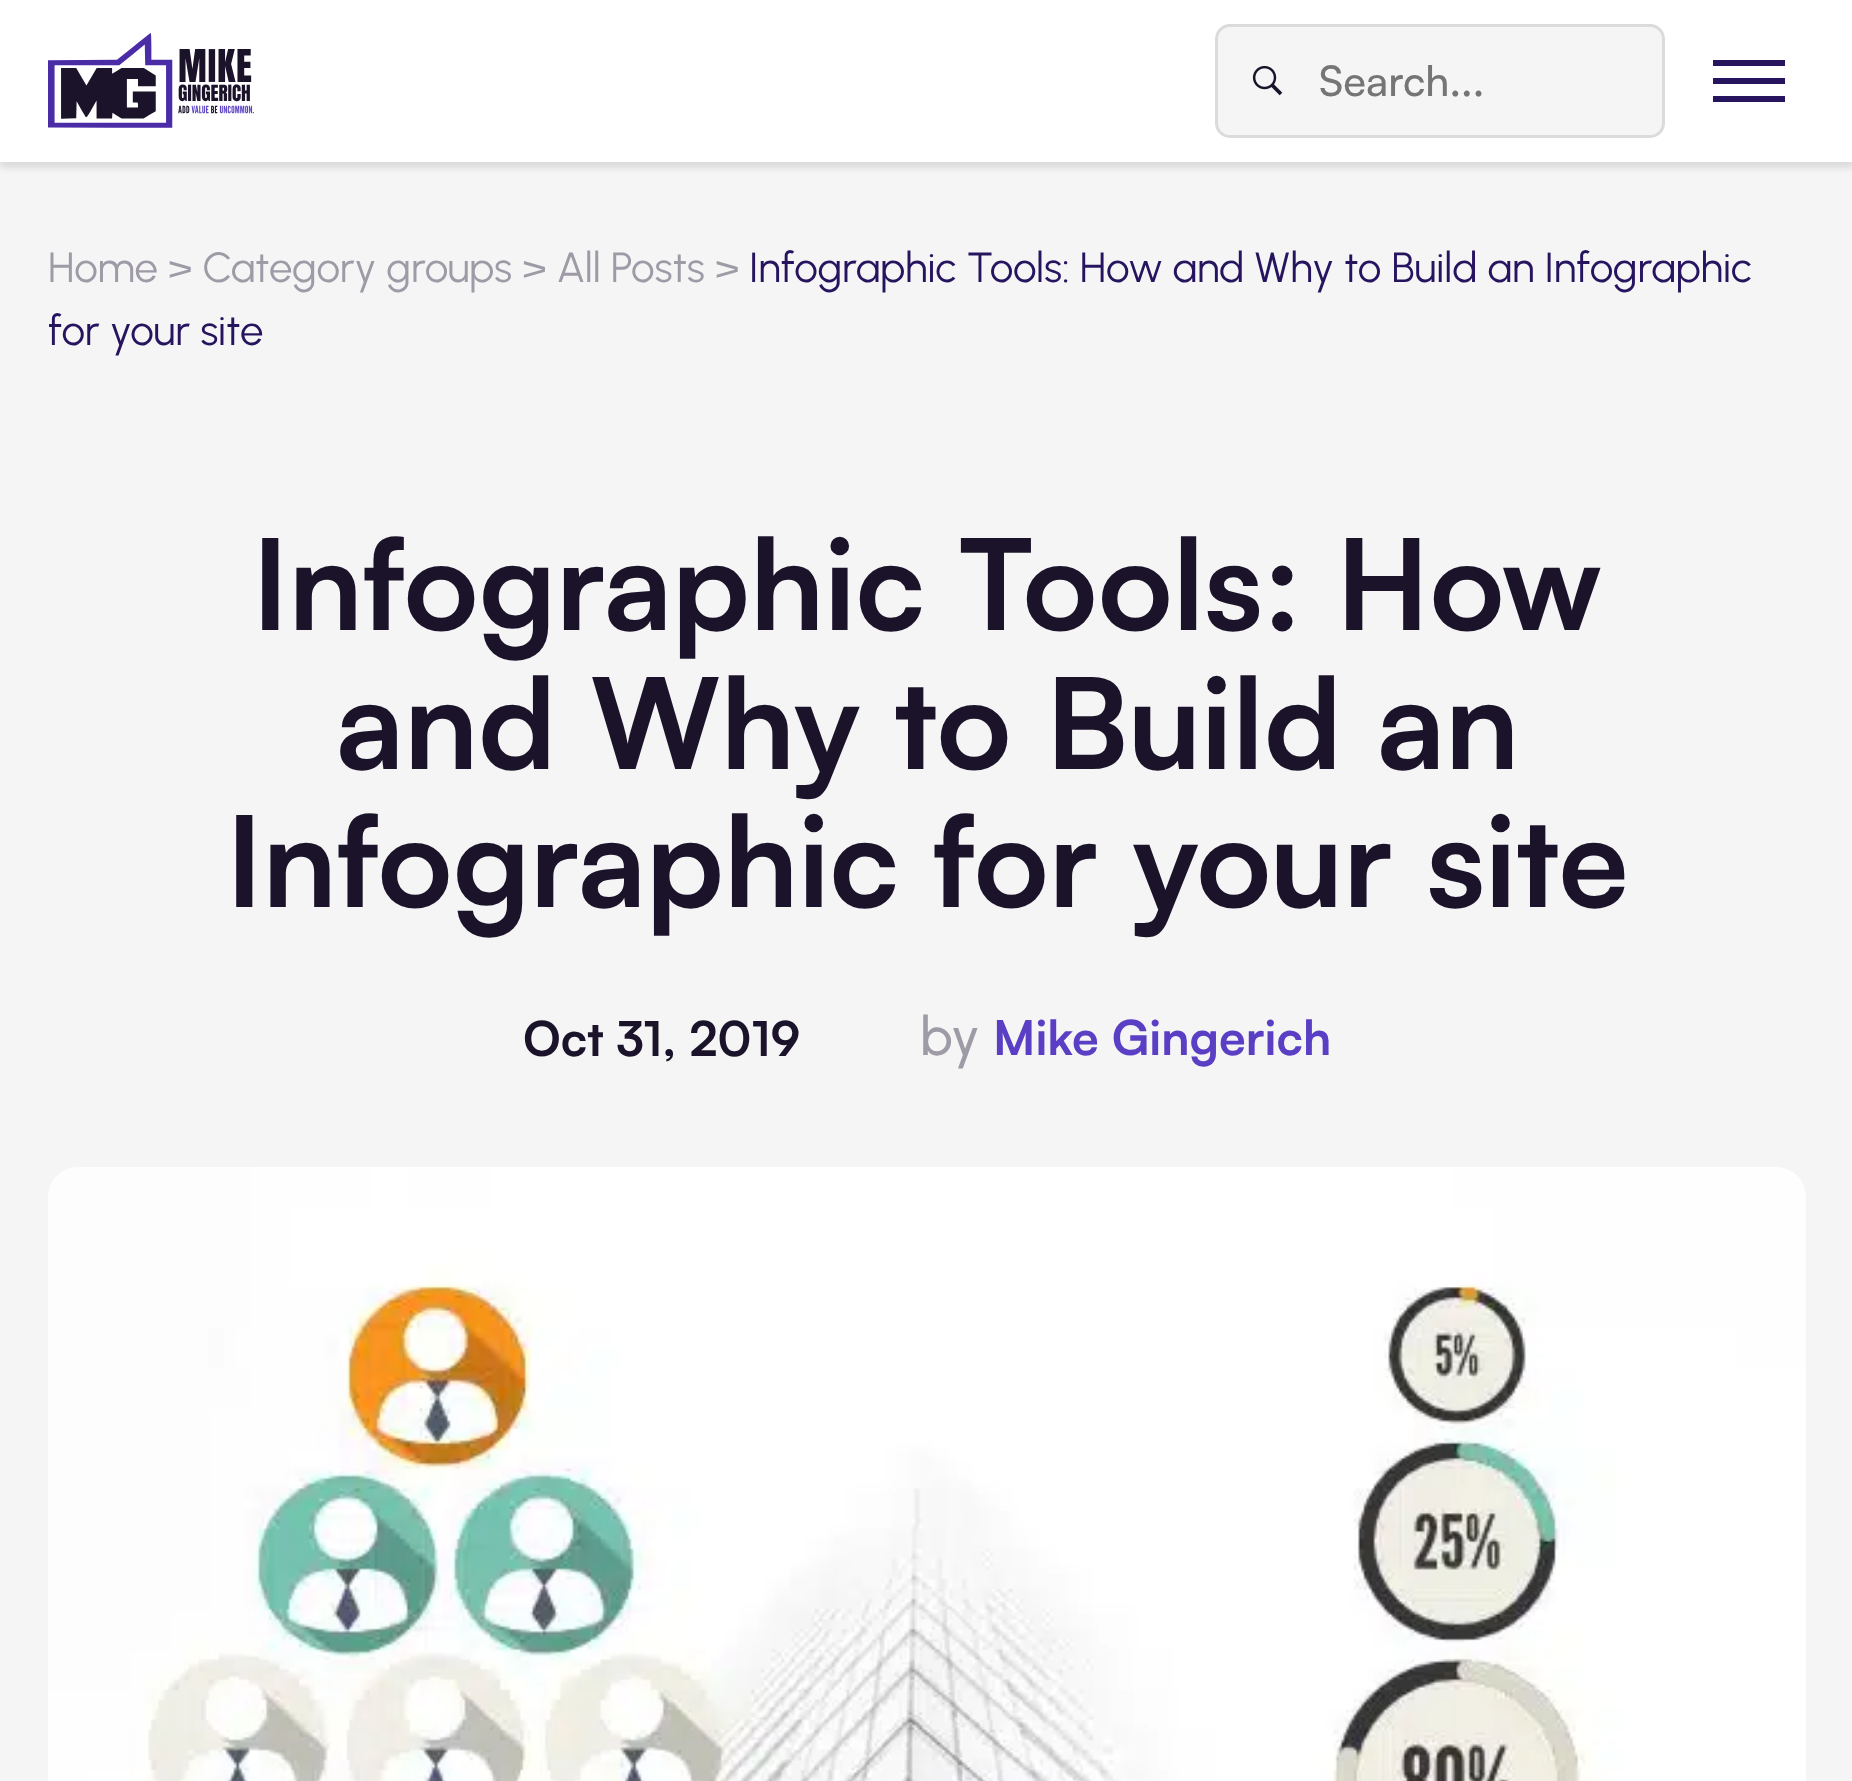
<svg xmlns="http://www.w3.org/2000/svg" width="1852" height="1781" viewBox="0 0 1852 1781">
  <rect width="100%" height="100%" fill="#f5f5f5"/>
  <path d="M0 6h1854v162H0z" fill="#0000001a" filter="blur(3px)"/>
  <path d="M0 0h1852v162H0z" fill="#fff"/>
  <image x="48" y="33" width="206" height="95" href="img/1.png"/>
  <rect x="1216.5" y="25.5" width="447" height="111" rx="13.5" fill="#f5f5f5" stroke="#dbdbdb" stroke-width="3"/>
  <image x="1252" y="65" width="31" height="31" href="img/2.png"/>
  <path d="M1713 78h72v6H1713z" fill="#26145f"/>
  <path d="M1713 60h72v6H1713z" fill="#26145f"/>
  <path d="M1713 96h72v6H1713z" fill="#26145f"/>
  <image x="48" y="1167" width="1758" height="614" href="img/3.png"/>
  <text x="1319" y="96" font-family="Satoshi" font-size="42" font-weight="500" fill="#757575">Search...</text>
  <text x="48" y="282" font-family="Urbanist" font-size="42" fill="#9e9ba7">Home &gt; Category groups &gt; All Posts &gt;</text>
  <g font-family="Urbanist" font-size="42" fill="#26145f">
    <text x="749" y="282">Infographic Tools: How and Why to Build an Infographic</text>
    <text x="48" y="345">for your site</text>
  </g>
  <g font-family="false" font-size="126" font-weight="bold" fill="#1a132a">
    <text x="252" y="630">Infographic Tools: How</text>
    <text x="335" y="769">and Why to Build an</text>
    <text x="226" y="907">Infographic for your site</text>
  </g>
  <text x="523" y="1056" font-family="false" font-size="48" font-weight="bold" fill="#1a132a">Oct 31, 2019</text>
  <text x="920" y="1055" font-family="Urbanist" font-size="54" font-weight="500" fill="#9e9ba7">by</text>
  <text x="993" y="1055" font-family="false" font-size="48" font-weight="bold" fill="#5a3fc5">Mike Gingerich</text>
</svg>
